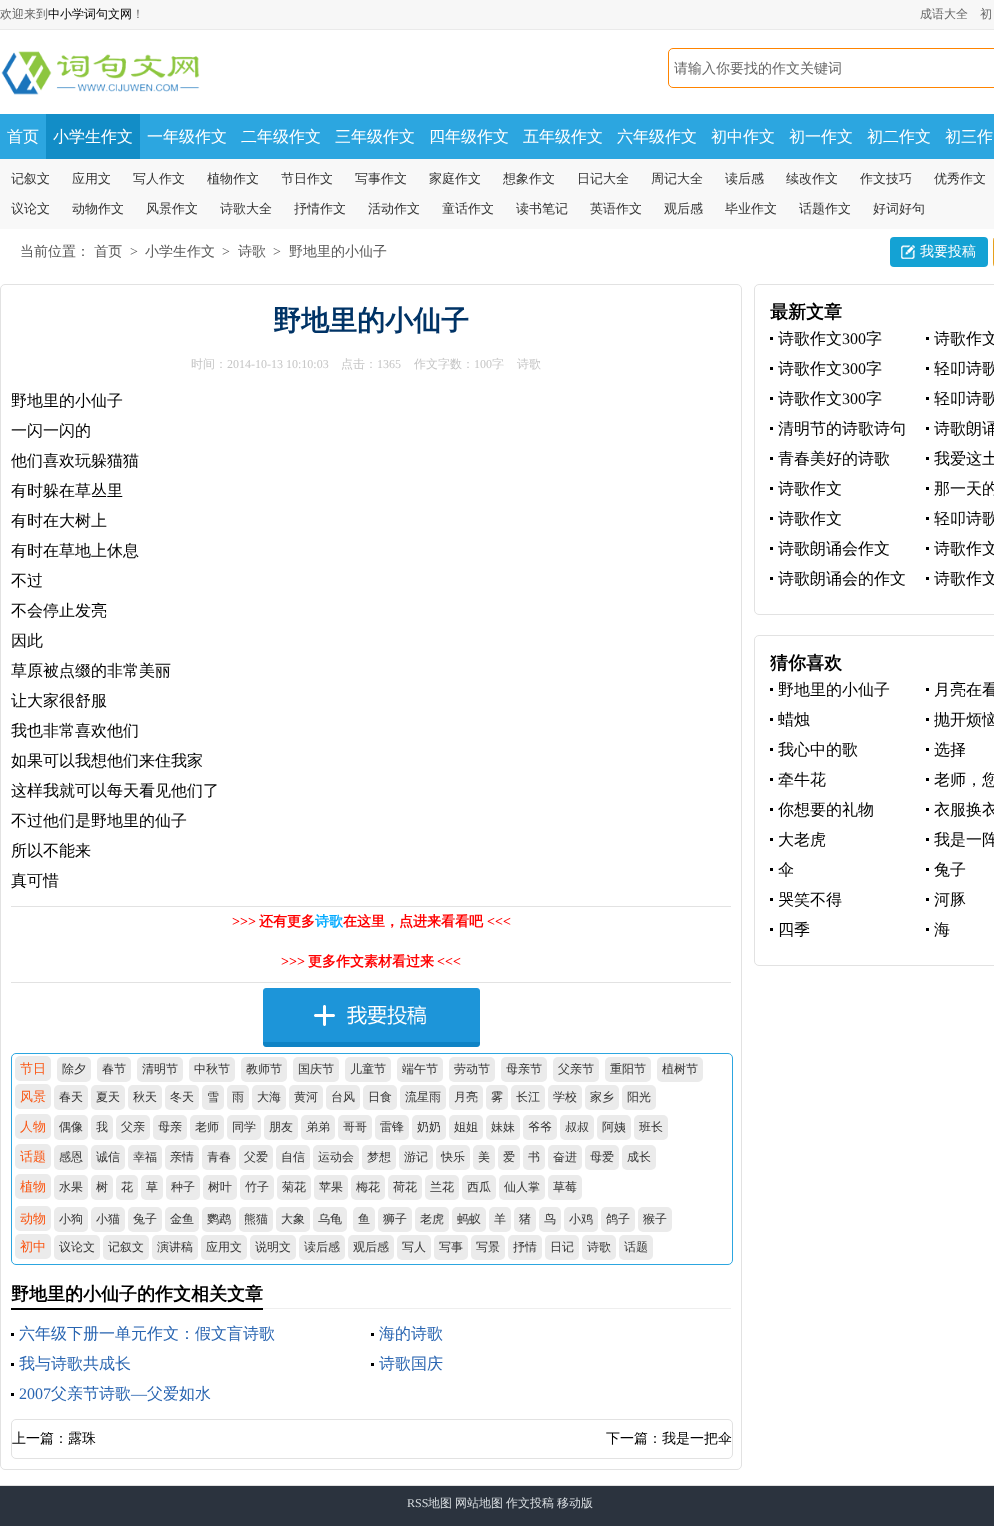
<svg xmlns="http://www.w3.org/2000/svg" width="994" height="1526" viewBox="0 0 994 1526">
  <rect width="100%" height="100%" fill="#fff"/>
  <path d="M0 0h994v29H0z" fill="#f7f7f7"/>
  <path d="M0 29h994v1H0z" fill="#eaeaea"/>
  <image x="1" y="51" width="199" height="44" href="img/1.png"/>
  <path d="M673 48.5H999.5V87.5H673C670.5 87.5 668.5 85.5 668.5 83V53C668.5 50.5 670.5 48.5 673 48.5Z" fill="none" stroke="#ff8400"/>
  <path d="M0 114h994v45H0z" fill="#2ca6e0"/>
  <path d="M46 114h94v45H46z" fill="#128dc7"/>
  <path d="M0 159h994v70H0z" fill="#f8f8f8"/>
  <rect x="890" y="237" width="98" height="30" rx="4" fill="#14a2d4"/>
  <image x="901" y="245" width="14" height="14" href="img/2.png"/>
  <rect x="993" y="237" width="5" height="30" rx="4" fill="#e6a01b"/>
  <rect x="0.5" y="284.5" width="741" height="1185" rx="4.5" fill="none" stroke="#e2e2e2"/>
  <path d="M11 906h720v1H11z" fill="#e2e2e2"/>
  <path d="M11 982h720v1H11z" fill="#e2e2e2"/>
  <image x="263" y="988" width="217" height="59" href="img/3.png"/>
  <rect x="11.5" y="1053.5" width="721" height="211" rx="4.5" fill="none" stroke="#2ca6e0"/>
  <rect x="15" y="1056" width="36" height="25" rx="5" fill="#ebebeb"/>
  <rect x="57" y="1057" width="34" height="25" rx="5" fill="#ebebeb"/>
  <rect x="97" y="1057" width="34" height="25" rx="5" fill="#ebebeb"/>
  <rect x="137" y="1057" width="46" height="25" rx="5" fill="#ebebeb"/>
  <rect x="189" y="1057" width="46" height="25" rx="5" fill="#ebebeb"/>
  <rect x="241" y="1057" width="46" height="25" rx="5" fill="#ebebeb"/>
  <rect x="293" y="1057" width="46" height="25" rx="5" fill="#ebebeb"/>
  <rect x="345" y="1057" width="46" height="25" rx="5" fill="#ebebeb"/>
  <rect x="397" y="1057" width="46" height="25" rx="5" fill="#ebebeb"/>
  <rect x="449" y="1057" width="46" height="25" rx="5" fill="#ebebeb"/>
  <rect x="501" y="1057" width="46" height="25" rx="5" fill="#ebebeb"/>
  <rect x="553" y="1057" width="46" height="25" rx="5" fill="#ebebeb"/>
  <rect x="605" y="1057" width="46" height="25" rx="5" fill="#ebebeb"/>
  <rect x="657" y="1057" width="46" height="25" rx="5" fill="#ebebeb"/>
  <rect x="15" y="1084" width="36" height="25" rx="5" fill="#ebebeb"/>
  <rect x="54" y="1085" width="34" height="25" rx="5" fill="#ebebeb"/>
  <rect x="91" y="1085" width="34" height="25" rx="5" fill="#ebebeb"/>
  <rect x="128" y="1085" width="34" height="25" rx="5" fill="#ebebeb"/>
  <rect x="165" y="1085" width="34" height="25" rx="5" fill="#ebebeb"/>
  <rect x="202" y="1085" width="22" height="25" rx="5" fill="#ebebeb"/>
  <rect x="227" y="1085" width="22" height="25" rx="5" fill="#ebebeb"/>
  <rect x="252" y="1085" width="34" height="25" rx="5" fill="#ebebeb"/>
  <rect x="289" y="1085" width="34" height="25" rx="5" fill="#ebebeb"/>
  <rect x="326" y="1085" width="34" height="25" rx="5" fill="#ebebeb"/>
  <rect x="363" y="1085" width="34" height="25" rx="5" fill="#ebebeb"/>
  <rect x="400" y="1085" width="46" height="25" rx="5" fill="#ebebeb"/>
  <rect x="449" y="1085" width="34" height="25" rx="5" fill="#ebebeb"/>
  <rect x="486" y="1085" width="22" height="25" rx="5" fill="#ebebeb"/>
  <rect x="511" y="1085" width="34" height="25" rx="5" fill="#ebebeb"/>
  <rect x="548" y="1085" width="34" height="25" rx="5" fill="#ebebeb"/>
  <rect x="585" y="1085" width="34" height="25" rx="5" fill="#ebebeb"/>
  <rect x="622" y="1085" width="34" height="25" rx="5" fill="#ebebeb"/>
  <rect x="15" y="1114" width="36" height="25" rx="5" fill="#ebebeb"/>
  <rect x="54" y="1115" width="34" height="25" rx="5" fill="#ebebeb"/>
  <rect x="91" y="1115" width="22" height="25" rx="5" fill="#ebebeb"/>
  <rect x="116" y="1115" width="34" height="25" rx="5" fill="#ebebeb"/>
  <rect x="153" y="1115" width="34" height="25" rx="5" fill="#ebebeb"/>
  <rect x="190" y="1115" width="34" height="25" rx="5" fill="#ebebeb"/>
  <rect x="227" y="1115" width="34" height="25" rx="5" fill="#ebebeb"/>
  <rect x="264" y="1115" width="34" height="25" rx="5" fill="#ebebeb"/>
  <rect x="301" y="1115" width="34" height="25" rx="5" fill="#ebebeb"/>
  <rect x="338" y="1115" width="34" height="25" rx="5" fill="#ebebeb"/>
  <rect x="375" y="1115" width="34" height="25" rx="5" fill="#ebebeb"/>
  <rect x="412" y="1115" width="34" height="25" rx="5" fill="#ebebeb"/>
  <rect x="449" y="1115" width="34" height="25" rx="5" fill="#ebebeb"/>
  <rect x="486" y="1115" width="34" height="25" rx="5" fill="#ebebeb"/>
  <rect x="523" y="1115" width="34" height="25" rx="5" fill="#ebebeb"/>
  <rect x="560" y="1115" width="34" height="25" rx="5" fill="#ebebeb"/>
  <rect x="597" y="1115" width="34" height="25" rx="5" fill="#ebebeb"/>
  <rect x="634" y="1115" width="34" height="25" rx="5" fill="#ebebeb"/>
  <rect x="15" y="1144" width="36" height="25" rx="5" fill="#ebebeb"/>
  <rect x="54" y="1145" width="34" height="25" rx="5" fill="#ebebeb"/>
  <rect x="91" y="1145" width="34" height="25" rx="5" fill="#ebebeb"/>
  <rect x="128" y="1145" width="34" height="25" rx="5" fill="#ebebeb"/>
  <rect x="165" y="1145" width="34" height="25" rx="5" fill="#ebebeb"/>
  <rect x="202" y="1145" width="34" height="25" rx="5" fill="#ebebeb"/>
  <rect x="239" y="1145" width="34" height="25" rx="5" fill="#ebebeb"/>
  <rect x="276" y="1145" width="34" height="25" rx="5" fill="#ebebeb"/>
  <rect x="313" y="1145" width="46" height="25" rx="5" fill="#ebebeb"/>
  <rect x="362" y="1145" width="34" height="25" rx="5" fill="#ebebeb"/>
  <rect x="399" y="1145" width="34" height="25" rx="5" fill="#ebebeb"/>
  <rect x="436" y="1145" width="34" height="25" rx="5" fill="#ebebeb"/>
  <rect x="473" y="1145" width="22" height="25" rx="5" fill="#ebebeb"/>
  <rect x="498" y="1145" width="22" height="25" rx="5" fill="#ebebeb"/>
  <rect x="523" y="1145" width="22" height="25" rx="5" fill="#ebebeb"/>
  <rect x="548" y="1145" width="34" height="25" rx="5" fill="#ebebeb"/>
  <rect x="585" y="1145" width="34" height="25" rx="5" fill="#ebebeb"/>
  <rect x="622" y="1145" width="34" height="25" rx="5" fill="#ebebeb"/>
  <rect x="15" y="1174" width="36" height="25" rx="5" fill="#ebebeb"/>
  <rect x="54" y="1175" width="34" height="25" rx="5" fill="#ebebeb"/>
  <rect x="91" y="1175" width="22" height="25" rx="5" fill="#ebebeb"/>
  <rect x="116" y="1175" width="22" height="25" rx="5" fill="#ebebeb"/>
  <rect x="141" y="1175" width="22" height="25" rx="5" fill="#ebebeb"/>
  <rect x="166" y="1175" width="34" height="25" rx="5" fill="#ebebeb"/>
  <rect x="203" y="1175" width="34" height="25" rx="5" fill="#ebebeb"/>
  <rect x="240" y="1175" width="34" height="25" rx="5" fill="#ebebeb"/>
  <rect x="277" y="1175" width="34" height="25" rx="5" fill="#ebebeb"/>
  <rect x="314" y="1175" width="34" height="25" rx="5" fill="#ebebeb"/>
  <rect x="351" y="1175" width="34" height="25" rx="5" fill="#ebebeb"/>
  <rect x="388" y="1175" width="34" height="25" rx="5" fill="#ebebeb"/>
  <rect x="425" y="1175" width="34" height="25" rx="5" fill="#ebebeb"/>
  <rect x="462" y="1175" width="34" height="25" rx="5" fill="#ebebeb"/>
  <rect x="499" y="1175" width="46" height="25" rx="5" fill="#ebebeb"/>
  <rect x="548" y="1175" width="34" height="25" rx="5" fill="#ebebeb"/>
  <rect x="15" y="1206" width="36" height="25" rx="5" fill="#ebebeb"/>
  <rect x="54" y="1207" width="34" height="25" rx="5" fill="#ebebeb"/>
  <rect x="91" y="1207" width="34" height="25" rx="5" fill="#ebebeb"/>
  <rect x="128" y="1207" width="34" height="25" rx="5" fill="#ebebeb"/>
  <rect x="165" y="1207" width="34" height="25" rx="5" fill="#ebebeb"/>
  <rect x="202" y="1207" width="34" height="25" rx="5" fill="#ebebeb"/>
  <rect x="239" y="1207" width="34" height="25" rx="5" fill="#ebebeb"/>
  <rect x="276" y="1207" width="34" height="25" rx="5" fill="#ebebeb"/>
  <rect x="313" y="1207" width="34" height="25" rx="5" fill="#ebebeb"/>
  <rect x="353" y="1207" width="22" height="25" rx="5" fill="#ebebeb"/>
  <rect x="378" y="1207" width="34" height="25" rx="5" fill="#ebebeb"/>
  <rect x="415" y="1207" width="34" height="25" rx="5" fill="#ebebeb"/>
  <rect x="452" y="1207" width="34" height="25" rx="5" fill="#ebebeb"/>
  <rect x="489" y="1207" width="22" height="25" rx="5" fill="#ebebeb"/>
  <rect x="514" y="1207" width="22" height="25" rx="5" fill="#ebebeb"/>
  <rect x="539" y="1207" width="22" height="25" rx="5" fill="#ebebeb"/>
  <rect x="564" y="1207" width="34" height="25" rx="5" fill="#ebebeb"/>
  <rect x="601" y="1207" width="34" height="25" rx="5" fill="#ebebeb"/>
  <rect x="638" y="1207" width="34" height="25" rx="5" fill="#ebebeb"/>
  <rect x="15" y="1234" width="36" height="25" rx="5" fill="#ebebeb"/>
  <rect x="54" y="1235" width="46" height="25" rx="5" fill="#ebebeb"/>
  <rect x="103" y="1235" width="46" height="25" rx="5" fill="#ebebeb"/>
  <rect x="152" y="1235" width="46" height="25" rx="5" fill="#ebebeb"/>
  <rect x="201" y="1235" width="46" height="25" rx="5" fill="#ebebeb"/>
  <rect x="250" y="1235" width="46" height="25" rx="5" fill="#ebebeb"/>
  <rect x="299" y="1235" width="46" height="25" rx="5" fill="#ebebeb"/>
  <rect x="348" y="1235" width="46" height="25" rx="5" fill="#ebebeb"/>
  <rect x="397" y="1235" width="34" height="25" rx="5" fill="#ebebeb"/>
  <rect x="434" y="1235" width="34" height="25" rx="5" fill="#ebebeb"/>
  <rect x="471" y="1235" width="34" height="25" rx="5" fill="#ebebeb"/>
  <rect x="508" y="1235" width="34" height="25" rx="5" fill="#ebebeb"/>
  <rect x="545" y="1235" width="34" height="25" rx="5" fill="#ebebeb"/>
  <rect x="582" y="1235" width="34" height="25" rx="5" fill="#ebebeb"/>
  <rect x="619" y="1235" width="34" height="25" rx="5" fill="#ebebeb"/>
  <path d="M263 1308h468v1H263z" fill="#eee"/>
  <path d="M11 1308h252v2H11z" fill="#000"/>
  <path d="M11 1333h3v3H11z" fill="#000"/>
  <path d="M371 1333h3v3H371z" fill="#000"/>
  <path d="M11 1363h3v3H11z" fill="#000"/>
  <path d="M371 1363h3v3H371z" fill="#000"/>
  <path d="M11 1393h3v3H11z" fill="#000"/>
  <rect x="11.5" y="1419.5" width="721" height="39" rx="4.5" fill="none" stroke="#e2e2e2"/>
  <rect x="754.5" y="284.5" width="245" height="330" rx="4.5" fill="none" stroke="#e2e2e2"/>
  <path d="M770 337h3v3H770z" fill="#000"/>
  <path d="M926 337h3v3H926z" fill="#000"/>
  <path d="M770 367h3v3H770z" fill="#000"/>
  <path d="M926 367h3v3H926z" fill="#000"/>
  <path d="M770 397h3v3H770z" fill="#000"/>
  <path d="M926 397h3v3H926z" fill="#000"/>
  <path d="M770 427h3v3H770z" fill="#000"/>
  <path d="M926 427h3v3H926z" fill="#000"/>
  <path d="M770 457h3v3H770z" fill="#000"/>
  <path d="M926 457h3v3H926z" fill="#000"/>
  <path d="M770 487h3v3H770z" fill="#000"/>
  <path d="M926 487h3v3H926z" fill="#000"/>
  <path d="M770 517h3v3H770z" fill="#000"/>
  <path d="M926 517h3v3H926z" fill="#000"/>
  <path d="M770 547h3v3H770z" fill="#000"/>
  <path d="M926 547h3v3H926z" fill="#000"/>
  <path d="M770 577h3v3H770z" fill="#000"/>
  <path d="M926 577h3v3H926z" fill="#000"/>
  <rect x="754.5" y="635.5" width="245" height="330" rx="4.5" fill="none" stroke="#e2e2e2"/>
  <path d="M770 688h3v3H770z" fill="#000"/>
  <path d="M926 688h3v3H926z" fill="#000"/>
  <path d="M770 718h3v3H770z" fill="#000"/>
  <path d="M926 718h3v3H926z" fill="#000"/>
  <path d="M770 748h3v3H770z" fill="#000"/>
  <path d="M926 748h3v3H926z" fill="#000"/>
  <path d="M770 778h3v3H770z" fill="#000"/>
  <path d="M926 778h3v3H926z" fill="#000"/>
  <path d="M770 808h3v3H770z" fill="#000"/>
  <path d="M926 808h3v3H926z" fill="#000"/>
  <path d="M770 838h3v3H770z" fill="#000"/>
  <path d="M926 838h3v3H926z" fill="#000"/>
  <path d="M770 868h3v3H770z" fill="#000"/>
  <path d="M926 868h3v3H926z" fill="#000"/>
  <path d="M770 898h3v3H770z" fill="#000"/>
  <path d="M926 898h3v3H926z" fill="#000"/>
  <path d="M770 928h3v3H770z" fill="#000"/>
  <path d="M926 928h3v3H926z" fill="#000"/>
  <path d="M0 1486h994v40H0z" fill="#2b333e"/>
  <path d="M0 1485h994v1H0z" fill="#e2e2e2"/>
  <text x="0" y="18" font-family="WenQuanYi Zen Hei" font-size="12" font-weight="500" fill="#666">欢迎来到</text>
  <text x="48" y="18" font-family="WenQuanYi Zen Hei" font-size="12" font-weight="500" fill="#000">中小学词句文网</text>
  <g font-family="WenQuanYi Zen Hei" font-size="12" font-weight="500" fill="#666">
    <text x="132" y="18">！</text>
    <text x="920" y="18">成语大全</text>
    <text x="980" y="18">初</text>
  </g>
  <text x="674" y="73" font-family="WenQuanYi Zen Hei" font-size="14" font-weight="500" fill="#666">请输入你要找的作文关键词</text>
  <g font-family="WenQuanYi Zen Hei" font-size="16" font-weight="500" fill="#fff">
    <text x="7" y="142">首页</text>
    <text x="53" y="142">小学生作文</text>
    <text x="147" y="142">一年级作文</text>
    <text x="241" y="142">二年级作文</text>
    <text x="335" y="142">三年级作文</text>
    <text x="429" y="142">四年级作文</text>
    <text x="523" y="142">五年级作文</text>
    <text x="617" y="142">六年级作文</text>
    <text x="711" y="142">初中作文</text>
    <text x="789" y="142">初一作文</text>
    <text x="867" y="142">初二作文</text>
    <text x="945" y="142">初三作</text>
  </g>
  <g font-family="WenQuanYi Zen Hei" font-size="13" font-weight="500" fill="#333">
    <text x="11" y="183">记叙文</text>
    <text x="72" y="183">应用文</text>
    <text x="133" y="183">写人作文</text>
    <text x="207" y="183">植物作文</text>
    <text x="281" y="183">节日作文</text>
    <text x="355" y="183">写事作文</text>
    <text x="429" y="183">家庭作文</text>
    <text x="503" y="183">想象作文</text>
    <text x="577" y="183">日记大全</text>
    <text x="651" y="183">周记大全</text>
    <text x="725" y="183">读后感</text>
    <text x="786" y="183">续改作文</text>
    <text x="860" y="183">作文技巧</text>
    <text x="934" y="183">优秀作文</text>
    <text x="11" y="213">议论文</text>
    <text x="72" y="213">动物作文</text>
    <text x="146" y="213">风景作文</text>
    <text x="220" y="213">诗歌大全</text>
    <text x="294" y="213">抒情作文</text>
    <text x="368" y="213">活动作文</text>
    <text x="442" y="213">童话作文</text>
    <text x="516" y="213">读书笔记</text>
    <text x="590" y="213">英语作文</text>
    <text x="664" y="213">观后感</text>
    <text x="725" y="213">毕业作文</text>
    <text x="799" y="213">话题作文</text>
    <text x="873" y="213">好词好句</text>
  </g>
  <text x="20" y="256" font-family="WenQuanYi Zen Hei" font-size="14" font-weight="500" fill="#585858">当前位置： 首页</text>
  <text x="130" y="256" font-family="Liberation Serif" font-size="14" fill="#585858">&gt;</text>
  <text x="145" y="256" font-family="WenQuanYi Zen Hei" font-size="14" font-weight="500" fill="#585858">小学生作文</text>
  <text x="222" y="256" font-family="Liberation Serif" font-size="14" fill="#585858">&gt;</text>
  <text x="238" y="256" font-family="WenQuanYi Zen Hei" font-size="14" font-weight="500" fill="#585858">诗歌</text>
  <text x="273" y="256" font-family="Liberation Serif" font-size="14" fill="#585858">&gt;</text>
  <text x="289" y="256" font-family="WenQuanYi Zen Hei" font-size="14" font-weight="500" fill="#585858">野地里的小仙子</text>
  <text x="920" y="256" font-family="WenQuanYi Zen Hei" font-size="14" font-weight="500" fill="#fff">我要投稿</text>
  <text x="273" y="330" font-family="WenQuanYi Zen Hei" font-size="28" font-weight="bold" fill="#036">野地里的小仙子</text>
  <text x="191" y="368" font-family="WenQuanYi Zen Hei" font-size="12" font-weight="500" fill="#c5c5c5">时间：</text>
  <text x="227" y="368" font-family="Liberation Serif" font-size="12" fill="#c5c5c5">2014-10-13 10:10:03</text>
  <text x="341" y="368" font-family="WenQuanYi Zen Hei" font-size="12" font-weight="500" fill="#c5c5c5">点击：</text>
  <text x="377" y="368" font-family="Liberation Serif" font-size="12" fill="#c5c5c5">1365</text>
  <text x="414" y="368" font-family="WenQuanYi Zen Hei" font-size="12" font-weight="500" fill="#c5c5c5">作文字数：</text>
  <text x="474" y="368" font-family="Liberation Serif" font-size="12" fill="#c5c5c5">100</text>
  <g font-family="WenQuanYi Zen Hei" font-size="12" font-weight="500" fill="#c5c5c5">
    <text x="492" y="368">字</text>
    <text x="517" y="368">诗歌</text>
  </g>
  <g font-family="WenQuanYi Zen Hei" font-size="16" font-weight="500" fill="#000">
    <text x="11" y="406">野地里的小仙子</text>
    <text x="11" y="436">一闪一闪的</text>
    <text x="11" y="466">他们喜欢玩躲猫猫</text>
    <text x="11" y="496">有时躲在草丛里</text>
    <text x="11" y="526">有时在大树上</text>
    <text x="11" y="556">有时在草地上休息</text>
    <text x="11" y="586">不过</text>
    <text x="11" y="616">不会停止发亮</text>
    <text x="11" y="646">因此</text>
    <text x="11" y="676">草原被点缀的非常美丽</text>
    <text x="11" y="706">让大家很舒服</text>
    <text x="11" y="736">我也非常喜欢他们</text>
    <text x="11" y="766">如果可以我想他们来住我家</text>
    <text x="11" y="796">这样我就可以每天看见他们了</text>
    <text x="11" y="826">不过他们是野地里的仙子</text>
    <text x="11" y="856">所以不能来</text>
    <text x="11" y="886">真可惜</text>
  </g>
  <text x="232" y="926" font-family="Liberation Serif" font-size="14" font-weight="bold" fill="#f00">&gt;&gt;&gt;</text>
  <text x="259" y="926" font-family="WenQuanYi Zen Hei" font-size="14" font-weight="bold" fill="#f00">还有更多</text>
  <text x="315" y="926" font-family="WenQuanYi Zen Hei" font-size="14" font-weight="bold" fill="#0af">诗歌</text>
  <text x="343" y="926" font-family="WenQuanYi Zen Hei" font-size="14" font-weight="bold" fill="#f00">在这里，点进来看看吧</text>
  <g font-family="Liberation Serif" font-size="14" font-weight="bold" fill="#f00">
    <text x="487" y="926">&lt;&lt;&lt;</text>
    <text x="281" y="966">&gt;&gt;&gt;</text>
  </g>
  <text x="308" y="966" font-family="WenQuanYi Zen Hei" font-size="14" font-weight="bold" fill="#f00">更多作文素材看过来</text>
  <text x="437" y="966" font-family="Liberation Serif" font-size="14" font-weight="bold" fill="#f00">&lt;&lt;&lt;</text>
  <text x="20" y="1073" font-family="WenQuanYi Zen Hei" font-size="13" font-weight="500" fill="#fa5714">节日</text>
  <g font-family="WenQuanYi Zen Hei" font-size="12" font-weight="500" fill="#333">
    <text x="62" y="1073">除夕</text>
    <text x="102" y="1073">春节</text>
    <text x="142" y="1073">清明节</text>
    <text x="194" y="1073">中秋节</text>
    <text x="246" y="1073">教师节</text>
    <text x="298" y="1073">国庆节</text>
    <text x="350" y="1073">儿童节</text>
    <text x="402" y="1073">端午节</text>
    <text x="454" y="1073">劳动节</text>
    <text x="506" y="1073">母亲节</text>
    <text x="558" y="1073">父亲节</text>
    <text x="610" y="1073">重阳节</text>
    <text x="662" y="1073">植树节</text>
  </g>
  <text x="20" y="1101" font-family="WenQuanYi Zen Hei" font-size="13" font-weight="500" fill="#fa5714">风景</text>
  <g font-family="WenQuanYi Zen Hei" font-size="12" font-weight="500" fill="#333">
    <text x="59" y="1101">春天</text>
    <text x="96" y="1101">夏天</text>
    <text x="133" y="1101">秋天</text>
    <text x="170" y="1101">冬天</text>
    <text x="207" y="1101">雪</text>
    <text x="232" y="1101">雨</text>
    <text x="257" y="1101">大海</text>
    <text x="294" y="1101">黄河</text>
    <text x="331" y="1101">台风</text>
    <text x="368" y="1101">日食</text>
    <text x="405" y="1101">流星雨</text>
    <text x="454" y="1101">月亮</text>
    <text x="491" y="1101">雾</text>
    <text x="516" y="1101">长江</text>
    <text x="553" y="1101">学校</text>
    <text x="590" y="1101">家乡</text>
    <text x="627" y="1101">阳光</text>
  </g>
  <text x="20" y="1131" font-family="WenQuanYi Zen Hei" font-size="13" font-weight="500" fill="#fa5714">人物</text>
  <g font-family="WenQuanYi Zen Hei" font-size="12" font-weight="500" fill="#333">
    <text x="59" y="1131">偶像</text>
    <text x="96" y="1131">我</text>
    <text x="121" y="1131">父亲</text>
    <text x="158" y="1131">母亲</text>
    <text x="195" y="1131">老师</text>
    <text x="232" y="1131">同学</text>
    <text x="269" y="1131">朋友</text>
    <text x="306" y="1131">弟弟</text>
    <text x="343" y="1131">哥哥</text>
    <text x="380" y="1131">雷锋</text>
    <text x="417" y="1131">奶奶</text>
    <text x="454" y="1131">姐姐</text>
    <text x="491" y="1131">妹妹</text>
    <text x="528" y="1131">爷爷</text>
    <text x="565" y="1131">叔叔</text>
    <text x="602" y="1131">阿姨</text>
    <text x="639" y="1131">班长</text>
  </g>
  <text x="20" y="1161" font-family="WenQuanYi Zen Hei" font-size="13" font-weight="500" fill="#fa5714">话题</text>
  <g font-family="WenQuanYi Zen Hei" font-size="12" font-weight="500" fill="#333">
    <text x="59" y="1161">感恩</text>
    <text x="96" y="1161">诚信</text>
    <text x="133" y="1161">幸福</text>
    <text x="170" y="1161">亲情</text>
    <text x="207" y="1161">青春</text>
    <text x="244" y="1161">父爱</text>
    <text x="281" y="1161">自信</text>
    <text x="318" y="1161">运动会</text>
    <text x="367" y="1161">梦想</text>
    <text x="404" y="1161">游记</text>
    <text x="441" y="1161">快乐</text>
    <text x="478" y="1161">美</text>
    <text x="503" y="1161">爱</text>
    <text x="528" y="1161">书</text>
    <text x="553" y="1161">奋进</text>
    <text x="590" y="1161">母爱</text>
    <text x="627" y="1161">成长</text>
  </g>
  <text x="20" y="1191" font-family="WenQuanYi Zen Hei" font-size="13" font-weight="500" fill="#fa5714">植物</text>
  <g font-family="WenQuanYi Zen Hei" font-size="12" font-weight="500" fill="#333">
    <text x="59" y="1191">水果</text>
    <text x="96" y="1191">树</text>
    <text x="121" y="1191">花</text>
    <text x="146" y="1191">草</text>
    <text x="171" y="1191">种子</text>
    <text x="208" y="1191">树叶</text>
    <text x="245" y="1191">竹子</text>
    <text x="282" y="1191">菊花</text>
    <text x="319" y="1191">苹果</text>
    <text x="356" y="1191">梅花</text>
    <text x="393" y="1191">荷花</text>
    <text x="430" y="1191">兰花</text>
    <text x="467" y="1191">西瓜</text>
    <text x="504" y="1191">仙人掌</text>
    <text x="553" y="1191">草莓</text>
  </g>
  <text x="20" y="1223" font-family="WenQuanYi Zen Hei" font-size="13" font-weight="500" fill="#fa5714">动物</text>
  <g font-family="WenQuanYi Zen Hei" font-size="12" font-weight="500" fill="#333">
    <text x="59" y="1223">小狗</text>
    <text x="96" y="1223">小猫</text>
    <text x="133" y="1223">兔子</text>
    <text x="170" y="1223">金鱼</text>
    <text x="207" y="1223">鹦鹉</text>
    <text x="244" y="1223">熊猫</text>
    <text x="281" y="1223">大象</text>
    <text x="318" y="1223">乌龟</text>
    <text x="358" y="1223">鱼</text>
    <text x="383" y="1223">狮子</text>
    <text x="420" y="1223">老虎</text>
    <text x="457" y="1223">蚂蚁</text>
    <text x="494" y="1223">羊</text>
    <text x="519" y="1223">猪</text>
    <text x="544" y="1223">鸟</text>
    <text x="569" y="1223">小鸡</text>
    <text x="606" y="1223">鸽子</text>
    <text x="643" y="1223">猴子</text>
  </g>
  <text x="20" y="1251" font-family="WenQuanYi Zen Hei" font-size="13" font-weight="500" fill="#fa5714">初中</text>
  <g font-family="WenQuanYi Zen Hei" font-size="12" font-weight="500" fill="#333">
    <text x="59" y="1251">议论文</text>
    <text x="108" y="1251">记叙文</text>
    <text x="157" y="1251">演讲稿</text>
    <text x="206" y="1251">应用文</text>
    <text x="255" y="1251">说明文</text>
    <text x="304" y="1251">读后感</text>
    <text x="353" y="1251">观后感</text>
    <text x="402" y="1251">写人</text>
    <text x="439" y="1251">写事</text>
    <text x="476" y="1251">写景</text>
    <text x="513" y="1251">抒情</text>
    <text x="550" y="1251">日记</text>
    <text x="587" y="1251">诗歌</text>
    <text x="624" y="1251">话题</text>
  </g>
  <text x="11" y="1300" font-family="WenQuanYi Zen Hei" font-size="18" font-weight="bold" fill="#000">野地里的小仙子的作文相关文章</text>
  <g font-family="WenQuanYi Zen Hei" font-size="16" font-weight="500" fill="#2965b1">
    <text x="19" y="1339">六年级下册一单元作文：假文盲诗歌</text>
    <text x="379" y="1339">海的诗歌</text>
    <text x="19" y="1369">我与诗歌共成长</text>
    <text x="379" y="1369">诗歌国庆</text>
  </g>
  <text x="19" y="1399" font-family="Liberation Serif" font-size="16" fill="#2965b1">2007</text>
  <text x="51" y="1399" font-family="WenQuanYi Zen Hei" font-size="16" font-weight="500" fill="#2965b1">父亲节诗歌</text>
  <text x="131" y="1399" font-family="Liberation Serif" font-size="16" fill="#2965b1">—</text>
  <text x="147" y="1399" font-family="WenQuanYi Zen Hei" font-size="16" font-weight="500" fill="#2965b1">父爱如水</text>
  <g font-family="WenQuanYi Zen Hei" font-size="14" font-weight="500" fill="#000">
    <text x="12" y="1443">上一篇：露珠</text>
    <text x="606" y="1443">下一篇：我是一把伞</text>
  </g>
  <text x="770" y="318" font-family="WenQuanYi Zen Hei" font-size="18" font-weight="bold" fill="#000">最新文章</text>
  <text x="778" y="344" font-family="WenQuanYi Zen Hei" font-size="16" font-weight="500" fill="#000">诗歌作文</text>
  <text x="842" y="344" font-family="Liberation Serif" font-size="16" fill="#000">300</text>
  <g font-family="WenQuanYi Zen Hei" font-size="16" font-weight="500" fill="#000">
    <text x="866" y="344">字</text>
    <text x="934" y="344">诗歌作文</text>
    <text x="778" y="374">诗歌作文</text>
  </g>
  <text x="842" y="374" font-family="Liberation Serif" font-size="16" fill="#000">300</text>
  <g font-family="WenQuanYi Zen Hei" font-size="16" font-weight="500" fill="#000">
    <text x="866" y="374">字</text>
    <text x="934" y="374">轻叩诗歌</text>
    <text x="778" y="404">诗歌作文</text>
  </g>
  <text x="842" y="404" font-family="Liberation Serif" font-size="16" fill="#000">300</text>
  <g font-family="WenQuanYi Zen Hei" font-size="16" font-weight="500" fill="#000">
    <text x="866" y="404">字</text>
    <text x="934" y="404">轻叩诗歌</text>
    <text x="778" y="434">清明节的诗歌诗句</text>
    <text x="934" y="434">诗歌朗诵</text>
    <text x="778" y="464">青春美好的诗歌</text>
    <text x="934" y="464">我爱这土</text>
    <text x="778" y="494">诗歌作文</text>
    <text x="934" y="494">那一天的</text>
    <text x="778" y="524">诗歌作文</text>
    <text x="934" y="524">轻叩诗歌</text>
    <text x="778" y="554">诗歌朗诵会作文</text>
    <text x="934" y="554">诗歌作文</text>
    <text x="778" y="584">诗歌朗诵会的作文</text>
    <text x="934" y="584">诗歌作文</text>
  </g>
  <text x="770" y="669" font-family="WenQuanYi Zen Hei" font-size="18" font-weight="bold" fill="#000">猜你喜欢</text>
  <g font-family="WenQuanYi Zen Hei" font-size="16" font-weight="500" fill="#000">
    <text x="778" y="695">野地里的小仙子</text>
    <text x="934" y="695">月亮在看</text>
    <text x="778" y="725">蜡烛</text>
    <text x="934" y="725">抛开烦恼</text>
    <text x="778" y="755">我心中的歌</text>
    <text x="934" y="755">选择</text>
    <text x="778" y="785">牵牛花</text>
    <text x="934" y="785">老师，您</text>
    <text x="778" y="815">你想要的礼物</text>
    <text x="934" y="815">衣服换衣</text>
    <text x="778" y="845">大老虎</text>
    <text x="934" y="845">我是一阵</text>
    <text x="778" y="875">伞</text>
    <text x="934" y="875">兔子</text>
    <text x="778" y="905">哭笑不得</text>
    <text x="934" y="905">河豚</text>
    <text x="778" y="935">四季</text>
    <text x="934" y="935">海</text>
  </g>
  <text x="407" y="1507" font-family="Liberation Serif" font-size="12" fill="#d8dde0">RSS</text>
  <g font-family="WenQuanYi Zen Hei" font-size="12" font-weight="500" fill="#d8dde0">
    <text x="428" y="1507">地图</text>
    <text x="455" y="1507">网站地图</text>
    <text x="506" y="1507">作文投稿</text>
    <text x="557" y="1507">移动版</text>
  </g>
</svg>
